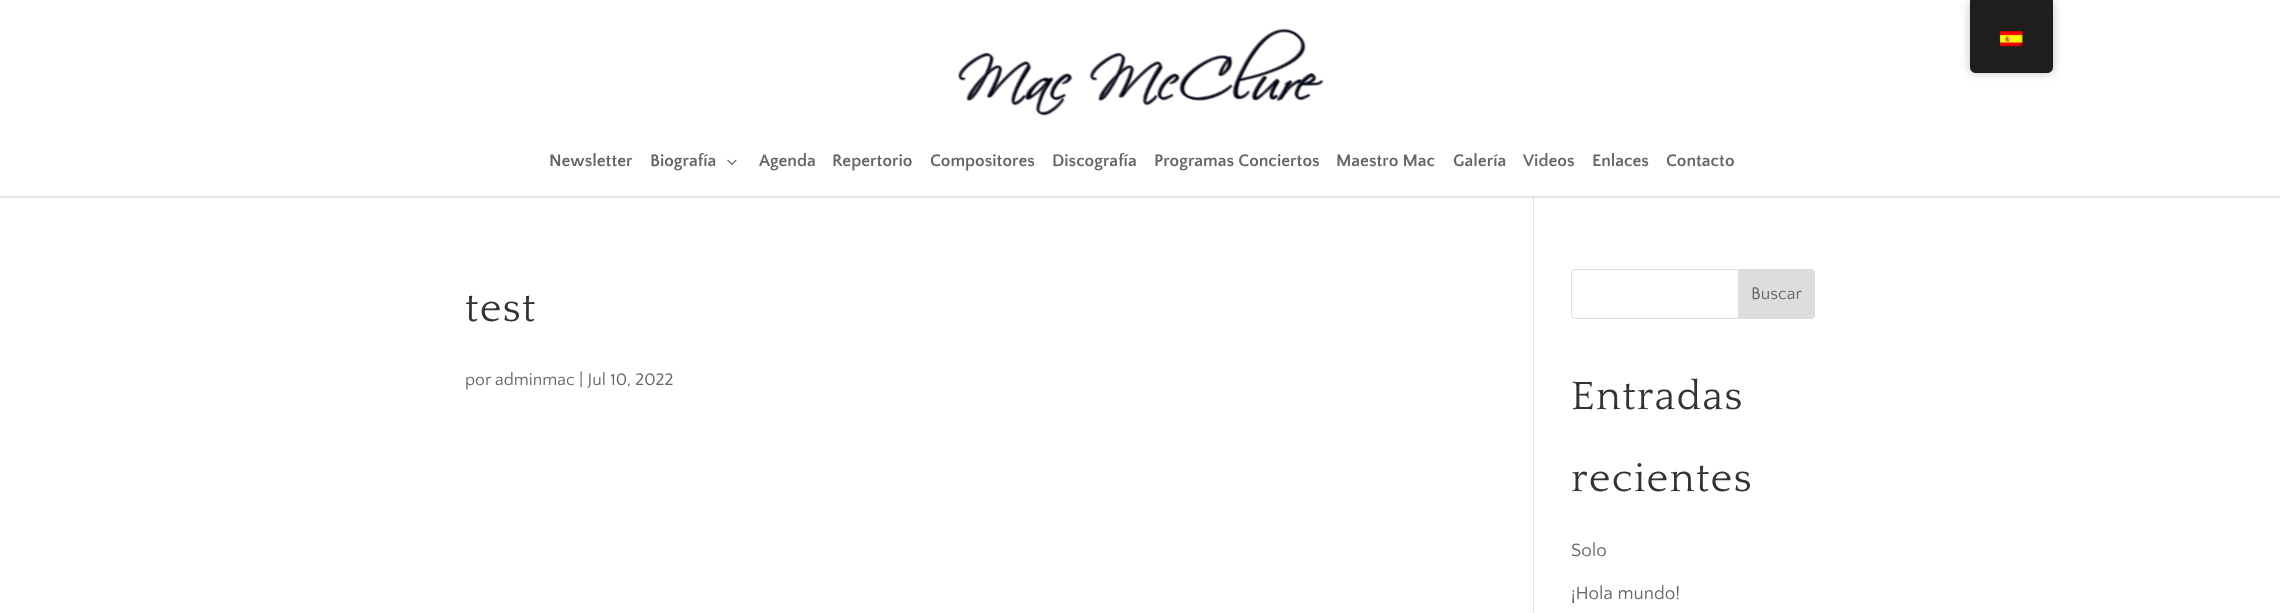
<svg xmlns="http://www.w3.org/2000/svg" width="2280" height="613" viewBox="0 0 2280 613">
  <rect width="100%" height="100%" fill="#fff"/>
  <rect x="1970" width="83" height="73" rx="6" fill="#00000040" filter="blur(5px)"/>
  <path d="M1970 0H2053V67C2053 70.5 2050.5 73 2047 73H1976C1972.5 73 1970 70.5 1970 67Z" fill="#1e1e1e"/>
  <image x="1999" y="31" width="24" height="16" href="img/1.png"/>
  <image x="958" y="28" width="366" height="88" href="img/2.png"/>
  <image x="727" y="159" width="10" height="6" href="img/3.png"/>
  <path d="M0 196h2280v2H0z" fill="#e6e6e6"/>
  <path d="M1533 196h1v417H1533z" fill="#e2e2e2"/>
  <path d="M1533 196h1v2H1533z" fill="#cbcbcb"/>
  <rect x="1571.5" y="269.5" width="243" height="49" rx="3.5" fill="none" stroke="#ddd"/>
  <path d="M1738.5 269.5H1811C1813 269.5 1814.5 271 1814.5 273V315C1814.5 317 1813 318.5 1811 318.5H1738.5Z" fill="#ddd" stroke="#ddd"/>
  <g font-family="Quattrocento Sans" font-size="17.5" font-weight="bold" fill="#666">
    <text x="549" y="166">Newsletter</text>
    <text x="650" y="166">Biografía</text>
    <text x="759" y="166">Agenda</text>
    <text x="832" y="166">Repertorio</text>
    <text x="930" y="166">Compositores</text>
    <text x="1052" y="166">Discografía</text>
    <text x="1154" y="166">Programas Conciertos</text>
    <text x="1336" y="166">Maestro Mac</text>
    <text x="1453" y="166">Galería</text>
    <text x="1523" y="166">Videos</text>
    <text x="1592" y="166">Enlaces</text>
    <text x="1666" y="166">Contacto</text>
  </g>
  <text x="465" y="321" font-family="Quattrocento" font-size="41.25" letter-spacing="1.25" fill="#333">test</text>
  <g font-family="Quattrocento Sans" font-size="17.5" fill="#666">
    <text x="465" y="385">por adminmac | Jul 10, 2022</text>
    <text x="1751" y="299">Buscar</text>
  </g>
  <g font-family="Quattrocento" font-size="41.25" letter-spacing="1.25" fill="#333">
    <text x="1571" y="409">Entradas</text>
    <text x="1571" y="491">recientes</text>
  </g>
  <g font-family="Quattrocento Sans" font-size="18.75" fill="#666">
    <text x="1571" y="556">Solo</text>
    <text x="1571" y="599">¡Hola mundo!</text>
  </g>
</svg>
